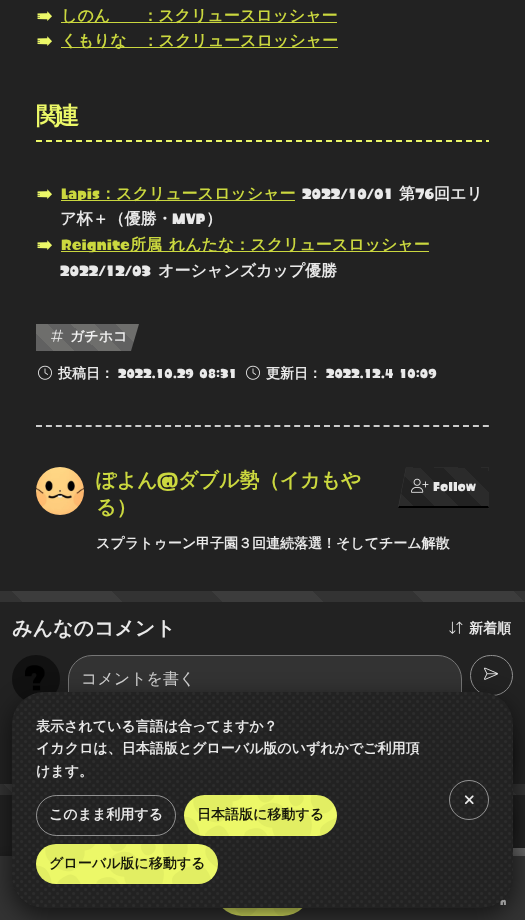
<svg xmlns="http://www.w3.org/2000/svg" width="525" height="920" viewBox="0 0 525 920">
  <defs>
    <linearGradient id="g1" gradientUnits="userSpaceOnUse" x1="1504" y1="-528" x2="-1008" y2="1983"><stop offset="0" stop-color="#3c3c3c"/><stop offset="0.01" stop-color="#3c3c3c"/><stop offset="0.01" stop-color="#333"/><stop offset="0.01" stop-color="#333"/><stop offset="0.01" stop-color="#3c3c3c"/><stop offset="0.02" stop-color="#3c3c3c"/><stop offset="0.02" stop-color="#333"/><stop offset="0.03" stop-color="#333"/><stop offset="0.03" stop-color="#3c3c3c"/><stop offset="0.03" stop-color="#3c3c3c"/><stop offset="0.03" stop-color="#333"/><stop offset="0.04" stop-color="#333"/><stop offset="0.04" stop-color="#3c3c3c"/><stop offset="0.05" stop-color="#3c3c3c"/><stop offset="0.05" stop-color="#333"/><stop offset="0.05" stop-color="#333"/><stop offset="0.05" stop-color="#3c3c3c"/><stop offset="0.06" stop-color="#3c3c3c"/><stop offset="0.06" stop-color="#333"/><stop offset="0.07" stop-color="#333"/><stop offset="0.07" stop-color="#3c3c3c"/><stop offset="0.07" stop-color="#3c3c3c"/><stop offset="0.07" stop-color="#333"/><stop offset="0.08" stop-color="#333"/><stop offset="0.08" stop-color="#3c3c3c"/><stop offset="0.09" stop-color="#3c3c3c"/><stop offset="0.09" stop-color="#333"/><stop offset="0.09" stop-color="#333"/><stop offset="0.09" stop-color="#3c3c3c"/><stop offset="0.1" stop-color="#3c3c3c"/><stop offset="0.1" stop-color="#333"/><stop offset="0.11" stop-color="#333"/><stop offset="0.11" stop-color="#3c3c3c"/><stop offset="0.11" stop-color="#3c3c3c"/><stop offset="0.11" stop-color="#333"/><stop offset="0.12" stop-color="#333"/><stop offset="0.12" stop-color="#3c3c3c"/><stop offset="0.13" stop-color="#3c3c3c"/><stop offset="0.13" stop-color="#333"/><stop offset="0.14" stop-color="#333"/><stop offset="0.14" stop-color="#3c3c3c"/><stop offset="0.14" stop-color="#3c3c3c"/><stop offset="0.14" stop-color="#333"/><stop offset="0.15" stop-color="#333"/><stop offset="0.15" stop-color="#3c3c3c"/><stop offset="0.16" stop-color="#3c3c3c"/><stop offset="0.16" stop-color="#333"/><stop offset="0.16" stop-color="#333"/><stop offset="0.16" stop-color="#3c3c3c"/><stop offset="0.17" stop-color="#3c3c3c"/><stop offset="0.17" stop-color="#333"/><stop offset="0.18" stop-color="#333"/><stop offset="0.18" stop-color="#3c3c3c"/><stop offset="0.18" stop-color="#3c3c3c"/><stop offset="0.18" stop-color="#333"/><stop offset="0.19" stop-color="#333"/><stop offset="0.19" stop-color="#3c3c3c"/><stop offset="0.2" stop-color="#3c3c3c"/><stop offset="0.2" stop-color="#333"/><stop offset="0.2" stop-color="#333"/><stop offset="0.2" stop-color="#3c3c3c"/><stop offset="0.21" stop-color="#3c3c3c"/><stop offset="0.21" stop-color="#333"/><stop offset="0.22" stop-color="#333"/><stop offset="0.22" stop-color="#3c3c3c"/><stop offset="0.22" stop-color="#3c3c3c"/><stop offset="0.22" stop-color="#333"/><stop offset="0.23" stop-color="#333"/><stop offset="0.23" stop-color="#3c3c3c"/><stop offset="0.24" stop-color="#3c3c3c"/><stop offset="0.24" stop-color="#333"/><stop offset="0.24" stop-color="#333"/><stop offset="0.24" stop-color="#3c3c3c"/><stop offset="0.25" stop-color="#3c3c3c"/><stop offset="0.25" stop-color="#333"/><stop offset="0.26" stop-color="#333"/><stop offset="0.26" stop-color="#3c3c3c"/><stop offset="0.26" stop-color="#3c3c3c"/><stop offset="0.26" stop-color="#333"/><stop offset="0.27" stop-color="#333"/><stop offset="0.27" stop-color="#3c3c3c"/><stop offset="0.28" stop-color="#3c3c3c"/><stop offset="0.28" stop-color="#333"/><stop offset="0.28" stop-color="#333"/><stop offset="0.28" stop-color="#3c3c3c"/><stop offset="0.29" stop-color="#3c3c3c"/><stop offset="0.29" stop-color="#333"/><stop offset="0.3" stop-color="#333"/><stop offset="0.3" stop-color="#3c3c3c"/><stop offset="0.3" stop-color="#3c3c3c"/><stop offset="0.3" stop-color="#333"/><stop offset="0.31" stop-color="#333"/><stop offset="0.31" stop-color="#3c3c3c"/><stop offset="0.32" stop-color="#3c3c3c"/><stop offset="0.32" stop-color="#333"/><stop offset="0.32" stop-color="#333"/><stop offset="0.32" stop-color="#3c3c3c"/><stop offset="0.33" stop-color="#3c3c3c"/><stop offset="0.33" stop-color="#333"/><stop offset="0.34" stop-color="#333"/><stop offset="0.34" stop-color="#3c3c3c"/><stop offset="0.34" stop-color="#3c3c3c"/><stop offset="0.34" stop-color="#333"/><stop offset="0.35" stop-color="#333"/><stop offset="0.35" stop-color="#3c3c3c"/><stop offset="0.36" stop-color="#3c3c3c"/><stop offset="0.36" stop-color="#333"/><stop offset="0.36" stop-color="#333"/><stop offset="0.36" stop-color="#3c3c3c"/><stop offset="0.37" stop-color="#3c3c3c"/><stop offset="0.37" stop-color="#333"/><stop offset="0.38" stop-color="#333"/><stop offset="0.38" stop-color="#3c3c3c"/><stop offset="0.39" stop-color="#3c3c3c"/><stop offset="0.39" stop-color="#333"/><stop offset="0.39" stop-color="#333"/><stop offset="0.39" stop-color="#3c3c3c"/><stop offset="0.4" stop-color="#3c3c3c"/><stop offset="0.4" stop-color="#333"/><stop offset="0.41" stop-color="#333"/><stop offset="0.41" stop-color="#3c3c3c"/><stop offset="0.41" stop-color="#3c3c3c"/><stop offset="0.41" stop-color="#333"/><stop offset="0.42" stop-color="#333"/><stop offset="0.42" stop-color="#3c3c3c"/><stop offset="0.43" stop-color="#3c3c3c"/><stop offset="0.43" stop-color="#333"/><stop offset="0.43" stop-color="#333"/><stop offset="0.43" stop-color="#3c3c3c"/><stop offset="0.44" stop-color="#3c3c3c"/><stop offset="0.44" stop-color="#333"/><stop offset="0.45" stop-color="#333"/><stop offset="0.45" stop-color="#3c3c3c"/><stop offset="0.45" stop-color="#3c3c3c"/><stop offset="0.45" stop-color="#333"/><stop offset="0.46" stop-color="#333"/><stop offset="0.46" stop-color="#3c3c3c"/><stop offset="0.47" stop-color="#3c3c3c"/><stop offset="0.47" stop-color="#333"/><stop offset="0.47" stop-color="#333"/><stop offset="0.47" stop-color="#3c3c3c"/><stop offset="0.48" stop-color="#3c3c3c"/><stop offset="0.48" stop-color="#333"/><stop offset="0.49" stop-color="#333"/><stop offset="0.49" stop-color="#3c3c3c"/><stop offset="0.49" stop-color="#3c3c3c"/><stop offset="0.49" stop-color="#333"/><stop offset="0.5" stop-color="#333"/><stop offset="0.5" stop-color="#3c3c3c"/><stop offset="0.51" stop-color="#3c3c3c"/><stop offset="0.51" stop-color="#333"/><stop offset="0.51" stop-color="#333"/><stop offset="0.51" stop-color="#3c3c3c"/><stop offset="0.52" stop-color="#3c3c3c"/><stop offset="0.52" stop-color="#333"/><stop offset="0.53" stop-color="#333"/><stop offset="0.53" stop-color="#3c3c3c"/><stop offset="0.53" stop-color="#3c3c3c"/><stop offset="0.53" stop-color="#333"/><stop offset="0.54" stop-color="#333"/><stop offset="0.54" stop-color="#3c3c3c"/><stop offset="0.55" stop-color="#3c3c3c"/><stop offset="0.55" stop-color="#333"/><stop offset="0.55" stop-color="#333"/><stop offset="0.55" stop-color="#3c3c3c"/><stop offset="0.56" stop-color="#3c3c3c"/><stop offset="0.56" stop-color="#333"/><stop offset="0.57" stop-color="#333"/><stop offset="0.57" stop-color="#3c3c3c"/><stop offset="0.57" stop-color="#3c3c3c"/><stop offset="0.57" stop-color="#333"/><stop offset="0.58" stop-color="#333"/><stop offset="0.58" stop-color="#3c3c3c"/><stop offset="0.59" stop-color="#3c3c3c"/><stop offset="0.59" stop-color="#333"/><stop offset="0.59" stop-color="#333"/><stop offset="0.59" stop-color="#3c3c3c"/><stop offset="0.6" stop-color="#3c3c3c"/><stop offset="0.6" stop-color="#333"/><stop offset="0.61" stop-color="#333"/><stop offset="0.61" stop-color="#3c3c3c"/><stop offset="0.61" stop-color="#3c3c3c"/><stop offset="0.61" stop-color="#333"/><stop offset="0.62" stop-color="#333"/><stop offset="0.62" stop-color="#3c3c3c"/><stop offset="0.63" stop-color="#3c3c3c"/><stop offset="0.63" stop-color="#333"/><stop offset="0.64" stop-color="#333"/><stop offset="0.64" stop-color="#3c3c3c"/><stop offset="0.64" stop-color="#3c3c3c"/><stop offset="0.64" stop-color="#333"/><stop offset="0.65" stop-color="#333"/><stop offset="0.65" stop-color="#3c3c3c"/><stop offset="0.66" stop-color="#3c3c3c"/><stop offset="0.66" stop-color="#333"/><stop offset="0.66" stop-color="#333"/><stop offset="0.66" stop-color="#3c3c3c"/><stop offset="0.67" stop-color="#3c3c3c"/><stop offset="0.67" stop-color="#333"/><stop offset="0.68" stop-color="#333"/><stop offset="0.68" stop-color="#3c3c3c"/><stop offset="0.68" stop-color="#3c3c3c"/><stop offset="0.68" stop-color="#333"/><stop offset="0.69" stop-color="#333"/><stop offset="0.69" stop-color="#3c3c3c"/><stop offset="0.7" stop-color="#3c3c3c"/><stop offset="0.7" stop-color="#333"/><stop offset="0.7" stop-color="#333"/><stop offset="0.7" stop-color="#3c3c3c"/><stop offset="0.71" stop-color="#3c3c3c"/><stop offset="0.71" stop-color="#333"/><stop offset="0.72" stop-color="#333"/><stop offset="0.72" stop-color="#3c3c3c"/><stop offset="0.72" stop-color="#3c3c3c"/><stop offset="0.72" stop-color="#333"/><stop offset="0.73" stop-color="#333"/><stop offset="0.73" stop-color="#3c3c3c"/><stop offset="0.74" stop-color="#3c3c3c"/><stop offset="0.74" stop-color="#333"/><stop offset="0.74" stop-color="#333"/><stop offset="0.74" stop-color="#3c3c3c"/><stop offset="0.75" stop-color="#3c3c3c"/><stop offset="0.75" stop-color="#333"/><stop offset="0.76" stop-color="#333"/><stop offset="0.76" stop-color="#3c3c3c"/><stop offset="0.76" stop-color="#3c3c3c"/><stop offset="0.76" stop-color="#333"/><stop offset="0.77" stop-color="#333"/><stop offset="0.77" stop-color="#3c3c3c"/><stop offset="0.78" stop-color="#3c3c3c"/><stop offset="0.78" stop-color="#333"/><stop offset="0.78" stop-color="#333"/><stop offset="0.78" stop-color="#3c3c3c"/><stop offset="0.79" stop-color="#3c3c3c"/><stop offset="0.79" stop-color="#333"/><stop offset="0.8" stop-color="#333"/><stop offset="0.8" stop-color="#3c3c3c"/><stop offset="0.8" stop-color="#3c3c3c"/><stop offset="0.8" stop-color="#333"/><stop offset="0.81" stop-color="#333"/><stop offset="0.81" stop-color="#3c3c3c"/><stop offset="0.82" stop-color="#3c3c3c"/><stop offset="0.82" stop-color="#333"/><stop offset="0.82" stop-color="#333"/><stop offset="0.82" stop-color="#3c3c3c"/><stop offset="0.83" stop-color="#3c3c3c"/><stop offset="0.83" stop-color="#333"/><stop offset="0.84" stop-color="#333"/><stop offset="0.84" stop-color="#3c3c3c"/><stop offset="0.84" stop-color="#3c3c3c"/><stop offset="0.84" stop-color="#333"/><stop offset="0.85" stop-color="#333"/><stop offset="0.85" stop-color="#3c3c3c"/><stop offset="0.86" stop-color="#3c3c3c"/><stop offset="0.86" stop-color="#333"/><stop offset="0.86" stop-color="#333"/><stop offset="0.86" stop-color="#3c3c3c"/><stop offset="0.87" stop-color="#3c3c3c"/><stop offset="0.87" stop-color="#333"/><stop offset="0.88" stop-color="#333"/><stop offset="0.88" stop-color="#3c3c3c"/><stop offset="0.89" stop-color="#3c3c3c"/><stop offset="0.89" stop-color="#333"/><stop offset="0.89" stop-color="#333"/><stop offset="0.89" stop-color="#3c3c3c"/><stop offset="0.9" stop-color="#3c3c3c"/><stop offset="0.9" stop-color="#333"/><stop offset="0.91" stop-color="#333"/><stop offset="0.91" stop-color="#3c3c3c"/><stop offset="0.91" stop-color="#3c3c3c"/><stop offset="0.91" stop-color="#333"/><stop offset="0.92" stop-color="#333"/><stop offset="0.92" stop-color="#3c3c3c"/><stop offset="0.93" stop-color="#3c3c3c"/><stop offset="0.93" stop-color="#333"/><stop offset="0.93" stop-color="#333"/><stop offset="0.93" stop-color="#3c3c3c"/><stop offset="0.94" stop-color="#3c3c3c"/><stop offset="0.94" stop-color="#333"/><stop offset="0.95" stop-color="#333"/><stop offset="0.95" stop-color="#3c3c3c"/><stop offset="0.95" stop-color="#3c3c3c"/><stop offset="0.95" stop-color="#333"/><stop offset="0.96" stop-color="#333"/><stop offset="0.96" stop-color="#3c3c3c"/><stop offset="0.97" stop-color="#3c3c3c"/><stop offset="0.97" stop-color="#333"/><stop offset="0.97" stop-color="#333"/><stop offset="0.97" stop-color="#3c3c3c"/><stop offset="0.98" stop-color="#3c3c3c"/><stop offset="0.98" stop-color="#333"/><stop offset="0.99" stop-color="#333"/><stop offset="0.99" stop-color="#3c3c3c"/><stop offset="0.99" stop-color="#3c3c3c"/><stop offset="0.99" stop-color="#333"/><stop offset="1" stop-color="#333"/></linearGradient>
    <linearGradient id="g2" gradientUnits="userSpaceOnUse" x1="120" y1="305" x2="52" y2="373"><stop offset="0" stop-color="#6e6e6c"/><stop offset="0.17" stop-color="#6e6e6c"/><stop offset="0.17" stop-color="#616161"/><stop offset="0.33" stop-color="#616161"/><stop offset="0.33" stop-color="#6e6e6c"/><stop offset="0.5" stop-color="#6e6e6c"/><stop offset="0.5" stop-color="#616161"/><stop offset="0.67" stop-color="#616161"/><stop offset="0.67" stop-color="#6e6e6c"/><stop offset="0.83" stop-color="#6e6e6c"/><stop offset="0.83" stop-color="#616161"/><stop offset="1" stop-color="#616161"/></linearGradient>
    <linearGradient id="g3" gradientUnits="userSpaceOnUse" x1="475" y1="417" x2="407" y2="485"><stop offset="0" stop-color="#222"/><stop offset="0.17" stop-color="#222"/><stop offset="0.17" stop-color="#2b2b2b"/><stop offset="0.33" stop-color="#2b2b2b"/><stop offset="0.33" stop-color="#222"/><stop offset="0.5" stop-color="#222"/><stop offset="0.5" stop-color="#2b2b2b"/><stop offset="0.67" stop-color="#2b2b2b"/><stop offset="0.67" stop-color="#222"/><stop offset="0.83" stop-color="#222"/><stop offset="0.83" stop-color="#2b2b2b"/><stop offset="1" stop-color="#2b2b2b"/></linearGradient>
    <linearGradient id="g4" gradientUnits="userSpaceOnUse" x1="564" y1="417" x2="496" y2="485"><stop offset="0" stop-color="#222"/><stop offset="0.17" stop-color="#222"/><stop offset="0.17" stop-color="#2b2b2b"/><stop offset="0.33" stop-color="#2b2b2b"/><stop offset="0.33" stop-color="#222"/><stop offset="0.5" stop-color="#222"/><stop offset="0.5" stop-color="#2b2b2b"/><stop offset="0.67" stop-color="#2b2b2b"/><stop offset="0.67" stop-color="#222"/><stop offset="0.83" stop-color="#222"/><stop offset="0.83" stop-color="#2b2b2b"/><stop offset="1" stop-color="#2b2b2b"/></linearGradient>
    <linearGradient id="g5" gradientUnits="userSpaceOnUse" x1="475" y1="455" x2="407" y2="523"><stop offset="0" stop-color="#222"/><stop offset="0.17" stop-color="#222"/><stop offset="0.17" stop-color="#2b2b2b"/><stop offset="0.33" stop-color="#2b2b2b"/><stop offset="0.33" stop-color="#222"/><stop offset="0.5" stop-color="#222"/><stop offset="0.5" stop-color="#2b2b2b"/><stop offset="0.67" stop-color="#2b2b2b"/><stop offset="0.67" stop-color="#222"/><stop offset="0.83" stop-color="#222"/><stop offset="0.83" stop-color="#2b2b2b"/><stop offset="1" stop-color="#2b2b2b"/></linearGradient>
    <linearGradient id="g6" gradientUnits="userSpaceOnUse" x1="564" y1="455" x2="496" y2="523"><stop offset="0" stop-color="#222"/><stop offset="0.17" stop-color="#222"/><stop offset="0.17" stop-color="#2b2b2b"/><stop offset="0.33" stop-color="#2b2b2b"/><stop offset="0.33" stop-color="#222"/><stop offset="0.5" stop-color="#222"/><stop offset="0.5" stop-color="#2b2b2b"/><stop offset="0.67" stop-color="#2b2b2b"/><stop offset="0.67" stop-color="#222"/><stop offset="0.83" stop-color="#222"/><stop offset="0.83" stop-color="#2b2b2b"/><stop offset="1" stop-color="#2b2b2b"/></linearGradient>
    <linearGradient id="g7" gradientUnits="userSpaceOnUse" x1="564" y1="493" x2="496" y2="561"><stop offset="0" stop-color="#222"/><stop offset="0.17" stop-color="#222"/><stop offset="0.17" stop-color="#2b2b2b"/><stop offset="0.33" stop-color="#2b2b2b"/><stop offset="0.33" stop-color="#222"/><stop offset="0.5" stop-color="#222"/><stop offset="0.5" stop-color="#2b2b2b"/><stop offset="0.67" stop-color="#2b2b2b"/><stop offset="0.67" stop-color="#222"/><stop offset="0.83" stop-color="#222"/><stop offset="0.83" stop-color="#2b2b2b"/><stop offset="1" stop-color="#2b2b2b"/></linearGradient>
  </defs>
  <rect width="100%" height="100%" fill="#fff"/>
  <path d="M0 591h525v204H0z" fill="url(#g1)"/>
  <path d="M0 0h525v591H0z" fill="#222"/>
  <path d="M61 22h276v1H61z" fill="#cad73f"/>
  <path d="M61 47h277v1H61z" fill="#cad73f"/>
  <path d="M36 141H489" fill="none" stroke="#ecf868" stroke-width="1.8" stroke-dasharray="6 4"/>
  <path d="M61 200h234v1H61z" fill="#cad73f"/>
  <path d="M61 251h368v1H61z" fill="#cad73f"/>
  <path d="M36 351H131L139 324H36Z" fill="url(#g2)"/>
  <image x="51" y="329" width="13" height="13" href="img/1.png"/>
  <image x="38" y="365" width="14" height="15" href="img/2.png"/>
  <image x="246" y="365" width="14" height="15" href="img/2.png"/>
  <path d="M36 426H489" fill="none" stroke="#ccc" stroke-width="2" stroke-dasharray="6 3.93"/>
  <image x="36" y="467" width="48" height="48" href="img/3.png"/>
  <path d="M489 508V467H406L398 508Z" fill="#3c3c3c"/>
  <path d="M406 467h82v1H406z" fill="url(#g3)"/>
  <path d="M489 468H488V467H489Z" fill="url(#g4)"/>
  <path d="M399 505L406 468H488V506H399Z" fill="url(#g5)"/>
  <path d="M488 468h1v38H488z" fill="url(#g6)"/>
  <path d="M488 506H489V508.5H488Z" fill="url(#g7)"/>
  <path d="M489 508H398L399 506H488Z" fill="#000"/>
  <image x="411" y="478" width="18" height="15" href="img/4.png"/>
  <path d="M0 602h525v182H0z" fill="#222"/>
  <image x="449" y="621" width="14" height="13" href="img/5.png"/>
  <circle cx="36" cy="679" r="24" fill="#111"/>
  <image x="25" y="665" width="20" height="26" href="img/6.png"/>
  <rect x="68.5" y="655.5" width="393" height="115" rx="23.5" fill="#333" stroke="#767676"/>
  <rect x="470.5" y="655.5" width="42" height="40" rx="20" fill="none" stroke="#919191"/>
  <image x="484" y="667" width="14" height="13" href="img/7.png"/>
  <path d="M0 795h525v61H0z" fill="#222"/>
  <path d="M513 848h12v8H513z" fill="#666"/>
  <path d="M0 856h525v64H0z" fill="#00000033" filter="blur(5px)"/>
  <path d="M0 856h525v64H0z" fill="#333"/>
  <rect x="214" y="860" width="97" height="56" rx="28" fill="#ecf868"/>
  <image x="223" y="908" width="75" height="8" href="img/12.png"/>
  <rect x="12" y="700" width="501" height="216" rx="32" fill="#00000099" filter="blur(12px)"/>
  <rect x="385" y="721" width="128" height="71" rx="35.5" fill="#00000066" filter="blur(6px)"/>
  <rect x="385" y="800" width="128" height="48" rx="24" fill="#00000066" filter="blur(6px)"/>
  <text x="36" y="21" font-family="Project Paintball" font-size="16" font-weight="bold" fill="#ecf868">→</text>
  <text x="61" y="21" font-family="WenQuanYi Zen Hei" font-size="16" font-weight="bold" fill="#cbd83f">しのん　　：スクリュースロッシャー</text>
  <text x="36" y="46" font-family="Project Paintball" font-size="16" font-weight="bold" fill="#ecf868">→</text>
  <text x="61" y="46" font-family="WenQuanYi Zen Hei" font-size="16" font-weight="bold" fill="#cbd83f">くもりな　：スクリュースロッシャー</text>
  <text x="36" y="124" font-family="WenQuanYi Zen Hei" font-size="24" font-weight="bold" letter-spacing="-5" fill="#ecf868">関連</text>
  <text x="36" y="199" font-family="Project Paintball" font-size="16" font-weight="bold" fill="#ecf868">→</text>
  <text x="61" y="199" font-family="Project Paintball" font-size="16" font-weight="bold" fill="#cbd83f">Lapis</text>
  <text x="100" y="199" font-family="WenQuanYi Zen Hei" font-size="16" font-weight="bold" fill="#cbd83f">：スクリュースロッシャー</text>
  <text x="302" y="199" font-family="Project Paintball" font-size="16" font-weight="bold" fill="#e9e9e9">2022/10/01</text>
  <text x="399" y="199" font-family="WenQuanYi Zen Hei" font-size="16" font-weight="bold" fill="#e9e9e9">第</text>
  <text x="415" y="199" font-family="Project Paintball" font-size="16" font-weight="bold" fill="#e9e9e9">76</text>
  <g font-family="WenQuanYi Zen Hei" font-size="16" font-weight="bold" fill="#e9e9e9">
    <text x="434" y="199">回エリ</text>
    <text x="60" y="224">ア杯＋（優勝・</text>
  </g>
  <text x="172" y="224" font-family="Project Paintball" font-size="16" font-weight="bold" fill="#e9e9e9">MVP</text>
  <text x="206" y="224" font-family="WenQuanYi Zen Hei" font-size="16" font-weight="bold" fill="#e9e9e9">）</text>
  <text x="36" y="250" font-family="Project Paintball" font-size="16" font-weight="bold" fill="#ecf868">→</text>
  <text x="61" y="250" font-family="Project Paintball" font-size="16" font-weight="bold" fill="#cbd83f">Reignite</text>
  <text x="130" y="250" word-spacing="2" font-family="WenQuanYi Zen Hei" font-size="16" font-weight="bold" fill="#cbd83f">所属 れんたな：スクリュースロッシャー</text>
  <text x="60" y="276" font-family="Project Paintball" font-size="16" font-weight="bold" fill="#e9e9e9">2022/12/03</text>
  <text x="158" y="276" font-family="WenQuanYi Zen Hei" font-size="16" font-weight="bold" fill="#e9e9e9">オーシャンズカップ優勝</text>
  <text x="70" y="341" font-family="WenQuanYi Zen Hei" font-size="14" font-weight="bold" fill="#f0f0f0">ガチホコ</text>
  <text x="58" y="378" font-family="WenQuanYi Zen Hei" font-size="14" font-weight="bold" fill="#e9e9e9">投稿日：</text>
  <text x="118" y="378" font-family="Project Paintball" font-size="14" font-weight="bold" fill="#e9e9e9">2022.10.29 08:31</text>
  <text x="266" y="378" font-family="WenQuanYi Zen Hei" font-size="14" font-weight="bold" fill="#e9e9e9">更新日：</text>
  <text x="326" y="378" font-family="Project Paintball" font-size="14" font-weight="bold" fill="#e9e9e9">2022.12.4 10:09</text>
  <text x="96" y="487" font-family="WenQuanYi Zen Hei" font-size="20" font-weight="bold" fill="#cbd83f">ぽよん</text>
  <text x="157" y="487" font-family="Project Paintball" font-size="20" font-weight="bold" fill="#cbd83f">@</text>
  <g font-family="WenQuanYi Zen Hei" font-size="20" font-weight="bold" fill="#cbd83f">
    <text x="178" y="487">ダブル勢（イカもや</text>
    <text x="96" y="514">る）</text>
  </g>
  <text x="433" y="491" font-family="Project Paintball" font-size="14" font-weight="bold" fill="#e9e9e9">Follow</text>
  <text x="96" y="548" font-family="WenQuanYi Zen Hei" font-size="14" font-weight="bold" fill="#e9e9e9">スプラトゥーン甲子園３回連続落選！そしてチーム解散</text>
  <text x="12" y="635" font-family="WenQuanYi Zen Hei" font-size="20" font-weight="bold" fill="#e9e9e9">みんなのコメント</text>
  <text x="469" y="633" font-family="WenQuanYi Zen Hei" font-size="14" font-weight="bold" fill="#e9e9e9">新着順</text>
  <text x="81" y="684" font-family="WenQuanYi Zen Hei" font-size="16" font-weight="500" fill="#ccc">コメントを書く</text>
  <text x="500" y="905" font-family="Project Paintball" font-size="10" font-weight="bold" fill="#999">n</text>
  <rect x="12" y="692" width="501" height="216" rx="32" fill="#222"/>
  <image x="12" y="692" width="501" height="215" href="img/8.png"/>
  <circle cx="469" cy="800" r="19.5" fill="none" stroke="#ffffff80"/>
  <image x="464" y="795" width="10" height="10" href="img/11.png"/>
  <rect x="36" y="844" width="182" height="40" rx="20" fill="#ecf868"/>
  <image x="36" y="844" width="182" height="40" href="img/10.png"/>
  <text x="49" y="868" font-family="WenQuanYi Zen Hei" font-size="14" font-weight="bold" fill="#17180a">グローバル版に移動する</text>
  <rect x="184" y="795" width="153" height="41" rx="20.5" fill="#ecf868"/>
  <image x="184" y="795" width="153" height="41" href="img/9.png"/>
  <text x="197" y="819" font-family="WenQuanYi Zen Hei" font-size="14" font-weight="bold" fill="#17180a">日本語版に移動する</text>
  <rect x="36.5" y="795.5" width="139" height="40" rx="20" fill="none" stroke="#ffffff80"/>
  <g font-family="WenQuanYi Zen Hei" font-size="14" font-weight="bold" fill="#e9e9e9">
    <text x="49" y="819">このまま利用する</text>
    <text x="36" y="776">けます。</text>
    <text x="36" y="753">イカクロは、日本語版とグローバル版のいずれかでご利用頂</text>
    <text x="36" y="731">表示されている言語は合ってますか？</text>
  </g>
</svg>
